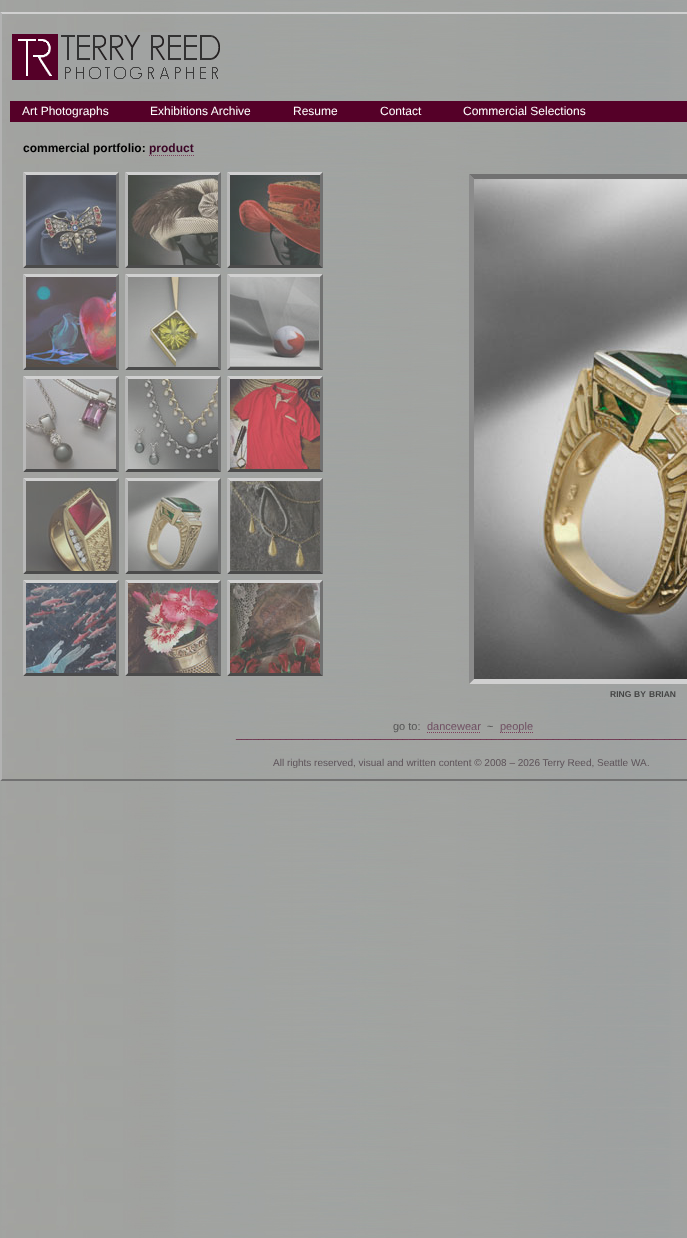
<svg xmlns="http://www.w3.org/2000/svg" width="687" height="1238" viewBox="0 0 687 1238">
  <rect width="100%" height="100%" fill="#fff"/>
  <image x="0" y="0" width="687" height="1238" href="img/1.png"/>
  <path d="M0 12H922L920 14H2Z" fill="#d0d0d0"/>
  <path d="M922 781H0L2 779H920Z" fill="#717171"/>
  <path d="M0 781V12L2 14V779Z" fill="#b2b2b2"/>
  <image x="12" y="32" width="208" height="50" href="img/2.png"/>
  <path d="M10 101h677v21H10z" fill="#550028"/>
  <path d="M149 155.5H194" fill="none" stroke="#7c3e5b" stroke-dasharray="1 1"/>
  <path d="M23 172H119L116 175H26Z" fill="#d0d0d0"/>
  <path d="M119 172V268L116 265V175Z" fill="#717171"/>
  <path d="M119 268H23L26 265H116Z" fill="#4b4b4b"/>
  <path d="M23 268V172L26 175V265Z" fill="#b8b8b8"/>
  <image x="26" y="175" width="90" height="90" href="img/3.png"/>
  <path d="M125 172H221L218 175H128Z" fill="#d0d0d0"/>
  <path d="M221 172V268L218 265V175Z" fill="#717171"/>
  <path d="M221 268H125L128 265H218Z" fill="#4b4b4b"/>
  <path d="M125 268V172L128 175V265Z" fill="#b8b8b8"/>
  <image x="128" y="175" width="90" height="90" href="img/4.png"/>
  <path d="M227 172H323L320 175H230Z" fill="#d0d0d0"/>
  <path d="M323 172V268L320 265V175Z" fill="#717171"/>
  <path d="M323 268H227L230 265H320Z" fill="#4b4b4b"/>
  <path d="M227 268V172L230 175V265Z" fill="#b8b8b8"/>
  <image x="230" y="175" width="90" height="90" href="img/5.png"/>
  <path d="M23 274H119L116 277H26Z" fill="#d0d0d0"/>
  <path d="M119 274V370L116 367V277Z" fill="#717171"/>
  <path d="M119 370H23L26 367H116Z" fill="#4b4b4b"/>
  <path d="M23 370V274L26 277V367Z" fill="#b8b8b8"/>
  <image x="26" y="277" width="90" height="90" href="img/6.png"/>
  <path d="M125 274H221L218 277H128Z" fill="#d0d0d0"/>
  <path d="M221 274V370L218 367V277Z" fill="#717171"/>
  <path d="M221 370H125L128 367H218Z" fill="#4b4b4b"/>
  <path d="M125 370V274L128 277V367Z" fill="#b8b8b8"/>
  <image x="128" y="277" width="90" height="90" href="img/7.png"/>
  <path d="M227 274H323L320 277H230Z" fill="#d0d0d0"/>
  <path d="M323 274V370L320 367V277Z" fill="#717171"/>
  <path d="M323 370H227L230 367H320Z" fill="#4b4b4b"/>
  <path d="M227 370V274L230 277V367Z" fill="#b8b8b8"/>
  <image x="230" y="277" width="89" height="89" href="img/8.png"/>
  <path d="M23 376H119L116 379H26Z" fill="#d0d0d0"/>
  <path d="M119 376V472L116 469V379Z" fill="#717171"/>
  <path d="M119 472H23L26 469H116Z" fill="#4b4b4b"/>
  <path d="M23 472V376L26 379V469Z" fill="#b8b8b8"/>
  <image x="26" y="379" width="90" height="90" href="img/9.png"/>
  <path d="M125 376H221L218 379H128Z" fill="#d0d0d0"/>
  <path d="M221 376V472L218 469V379Z" fill="#717171"/>
  <path d="M221 472H125L128 469H218Z" fill="#4b4b4b"/>
  <path d="M125 472V376L128 379V469Z" fill="#b8b8b8"/>
  <image x="128" y="379" width="90" height="90" href="img/10.png"/>
  <path d="M227 376H323L320 379H230Z" fill="#d0d0d0"/>
  <path d="M323 376V472L320 469V379Z" fill="#717171"/>
  <path d="M323 472H227L230 469H320Z" fill="#4b4b4b"/>
  <path d="M227 472V376L230 379V469Z" fill="#b8b8b8"/>
  <image x="230" y="379" width="90" height="90" href="img/11.png"/>
  <path d="M23 478H119L116 481H26Z" fill="#d0d0d0"/>
  <path d="M119 478V574L116 571V481Z" fill="#717171"/>
  <path d="M119 574H23L26 571H116Z" fill="#4b4b4b"/>
  <path d="M23 574V478L26 481V571Z" fill="#b8b8b8"/>
  <image x="26" y="481" width="90" height="90" href="img/12.png"/>
  <path d="M125 478H221L218 481H128Z" fill="#d0d0d0"/>
  <path d="M221 478V574L218 571V481Z" fill="#717171"/>
  <path d="M221 574H125L128 571H218Z" fill="#4b4b4b"/>
  <path d="M125 574V478L128 481V571Z" fill="#b8b8b8"/>
  <image x="128" y="481" width="90" height="90" href="img/13.png"/>
  <path d="M227 478H323L320 481H230Z" fill="#d0d0d0"/>
  <path d="M323 478V574L320 571V481Z" fill="#717171"/>
  <path d="M323 574H227L230 571H320Z" fill="#4b4b4b"/>
  <path d="M227 574V478L230 481V571Z" fill="#b8b8b8"/>
  <image x="230" y="481" width="90" height="90" href="img/14.png"/>
  <path d="M23 580H119L116 583H26Z" fill="#d0d0d0"/>
  <path d="M119 580V676L116 673V583Z" fill="#717171"/>
  <path d="M119 676H23L26 673H116Z" fill="#4b4b4b"/>
  <path d="M23 676V580L26 583V673Z" fill="#b8b8b8"/>
  <image x="26" y="583" width="90" height="90" href="img/15.png"/>
  <path d="M125 580H221L218 583H128Z" fill="#d0d0d0"/>
  <path d="M221 580V676L218 673V583Z" fill="#717171"/>
  <path d="M221 676H125L128 673H218Z" fill="#4b4b4b"/>
  <path d="M125 676V580L128 583V673Z" fill="#b8b8b8"/>
  <image x="128" y="583" width="90" height="90" href="img/16.png"/>
  <path d="M227 580H323L320 583H230Z" fill="#d0d0d0"/>
  <path d="M323 580V676L320 673V583Z" fill="#717171"/>
  <path d="M323 676H227L230 673H320Z" fill="#4b4b4b"/>
  <path d="M227 676V580L230 583V673Z" fill="#b8b8b8"/>
  <image x="230" y="583" width="90" height="90" href="img/17.png"/>
  <path d="M469 174H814L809 179H474Z" fill="#717171"/>
  <path d="M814 684H469L474 679H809Z" fill="#d0d0d0"/>
  <path d="M469 684V174L474 179V679Z" fill="#8b8b8b"/>
  <image x="474" y="179" width="213" height="500" href="img/18.png"/>
  <path d="M427 732.5H481" fill="none" stroke="#7c3e5b" stroke-dasharray="1 1"/>
  <path d="M500 732.5H533" fill="none" stroke="#7c3e5b" stroke-dasharray="1 1"/>
  <g font-family="Liberation Sans" font-size="12" fill="#fff">
    <text x="22" y="115">Art Photographs</text>
    <text x="150" y="115">Exhibitions Archive</text>
    <text x="293" y="115">Resume</text>
    <text x="380" y="115">Contact</text>
    <text x="463" y="115">Commercial Selections</text>
  </g>
  <text x="23" y="152" font-family="Liberation Sans" font-size="12" font-weight="bold" fill="#000">commercial portfolio:</text>
  <text x="149" y="152" font-family="Liberation Sans" font-size="12" font-weight="bold" fill="#3b0626">product</text>
  <g font-family="Liberation Sans" font-size="8.5" font-weight="bold" fill="#444">
    <text x="610" y="697">RING</text>
    <text x="634" y="697">BY</text>
    <text x="649" y="697">BRIAN</text>
  </g>
  <text x="393" y="730" font-family="Liberation Sans" font-size="11" fill="#555">go to:</text>
  <text x="427" y="730" font-family="Liberation Sans" font-size="11" fill="#705063">dancewear</text>
  <text x="487" y="730" font-family="Liberation Sans" font-size="11" fill="#555">~</text>
  <text x="500" y="730" font-family="Liberation Sans" font-size="11" fill="#705063">people</text>
  <text x="236" y="738" font-family="Liberation Sans" font-size="10" fill="#550028">_________________________________________________________________________________</text>
  <text x="273" y="766" font-family="Liberation Sans" font-size="10" fill="#5d5359">All rights reserved, visual and written content © 2008 – 2026 Terry Reed, Seattle WA</text>
  <text x="647" y="766" font-family="Liberation Sans" font-size="9" fill="#555">.</text>
</svg>
